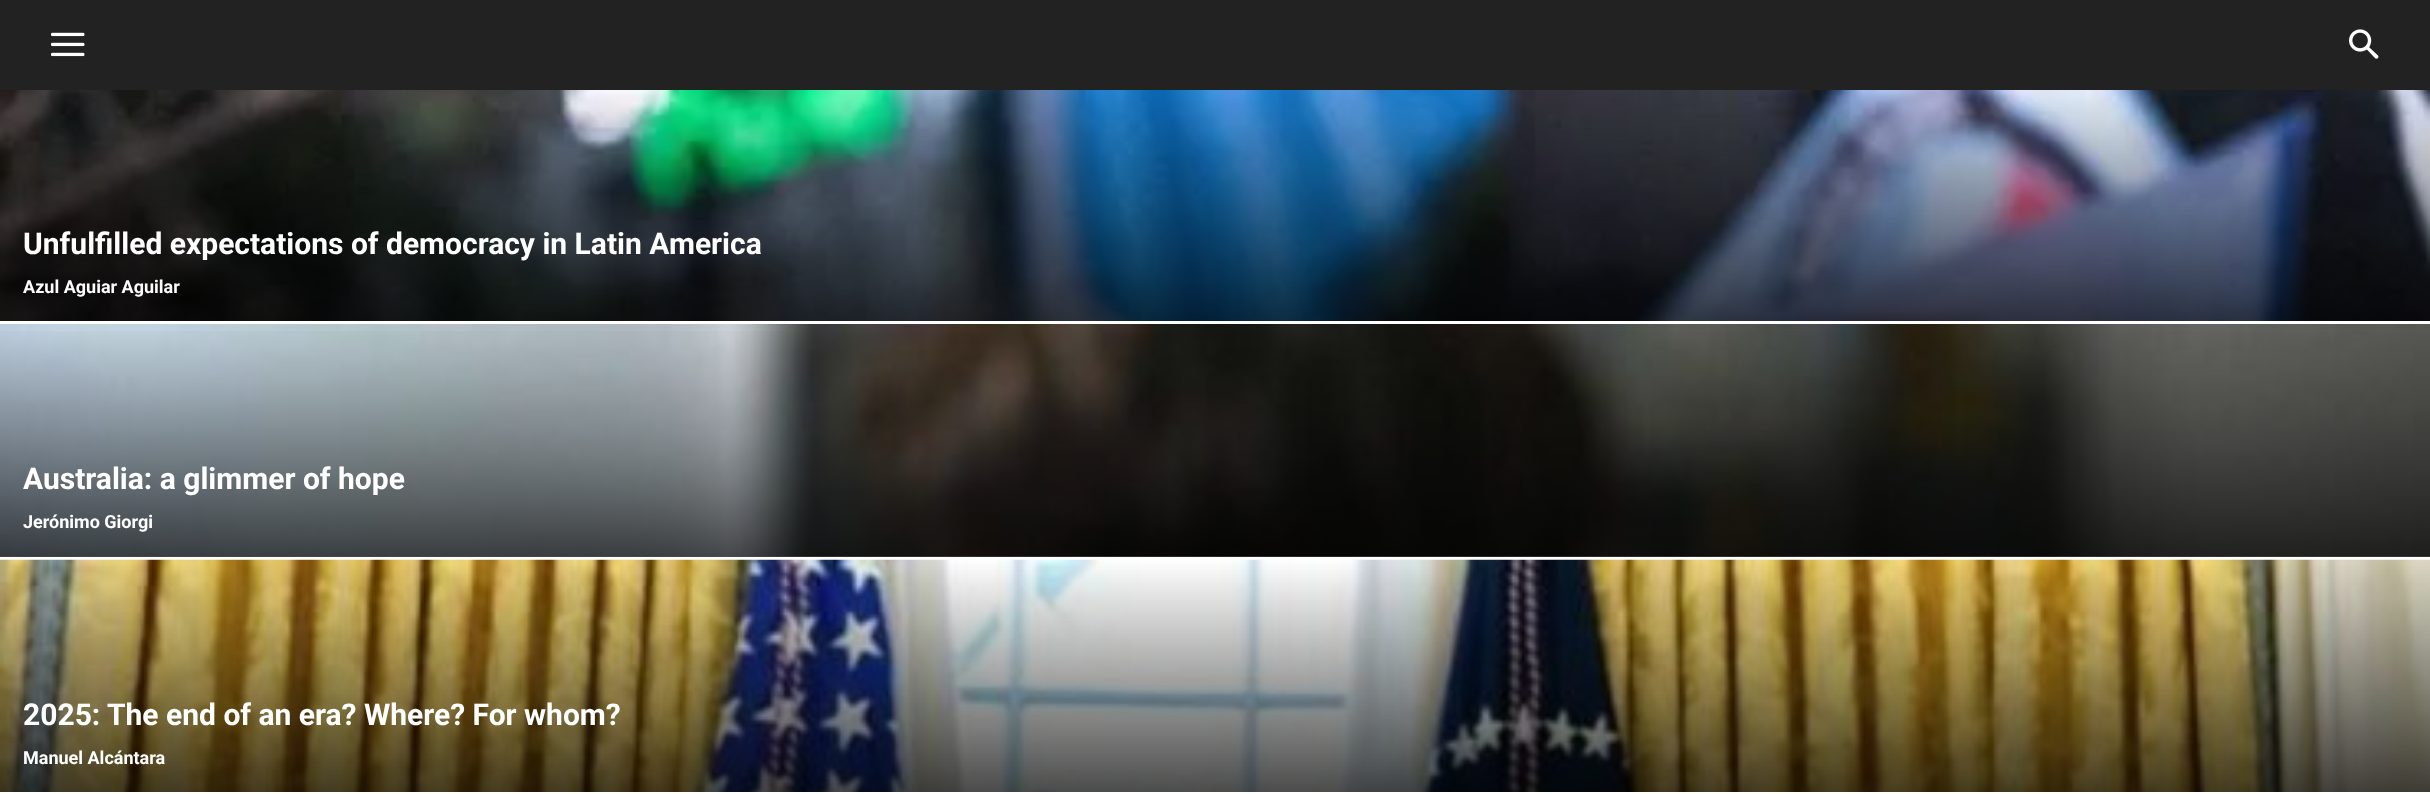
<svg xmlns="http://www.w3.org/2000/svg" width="2430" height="794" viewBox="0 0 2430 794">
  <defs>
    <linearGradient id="g1" gradientUnits="userSpaceOnUse" x1="1580" y1="324" x2="1580" y2="557"><stop offset="0" stop-color="#000" stop-opacity="0"/><stop offset="1" stop-color="#000" stop-opacity="0.7"/></linearGradient>
  </defs>
  <rect width="100%" height="100%" fill="#fff"/>
  <path d="M0 0h2430v90H0z" fill="#222"/>
  <image x="51" y="32" width="34" height="25" href="img/1.png"/>
  <image x="2349" y="29" width="30" height="30" href="img/2.png"/>
  <image x="0" y="90" width="2430" height="231" href="img/3.png"/>
  <image x="0" y="324" width="2430" height="233" href="img/4.png"/>
  <path d="M0 331h2430v226H0z" fill="url(#g1)"/>
  <image x="0" y="559" width="2430" height="233" href="img/5.png"/>
  <text x="23" y="254" font-family="Roboto" font-size="30" font-weight="bold" fill="#fff">Unfulfilled expectations of democracy in Latin America</text>
  <text x="23" y="293" font-family="Roboto" font-size="18" font-weight="bold" fill="#fff">Azul Aguiar Aguilar</text>
  <text x="23" y="489" font-family="Roboto" font-size="30" font-weight="bold" fill="#fff">Australia: a glimmer of hope</text>
  <text x="23" y="528" font-family="Roboto" font-size="18" font-weight="bold" fill="#fff">Jerónimo Giorgi</text>
  <text x="23" y="725" font-family="Roboto" font-size="30" font-weight="bold" fill="#fff">2025: The end of an era? Where? For whom?</text>
  <text x="23" y="764" font-family="Roboto" font-size="18" font-weight="bold" fill="#fff">Manuel Alcántara</text>
</svg>
